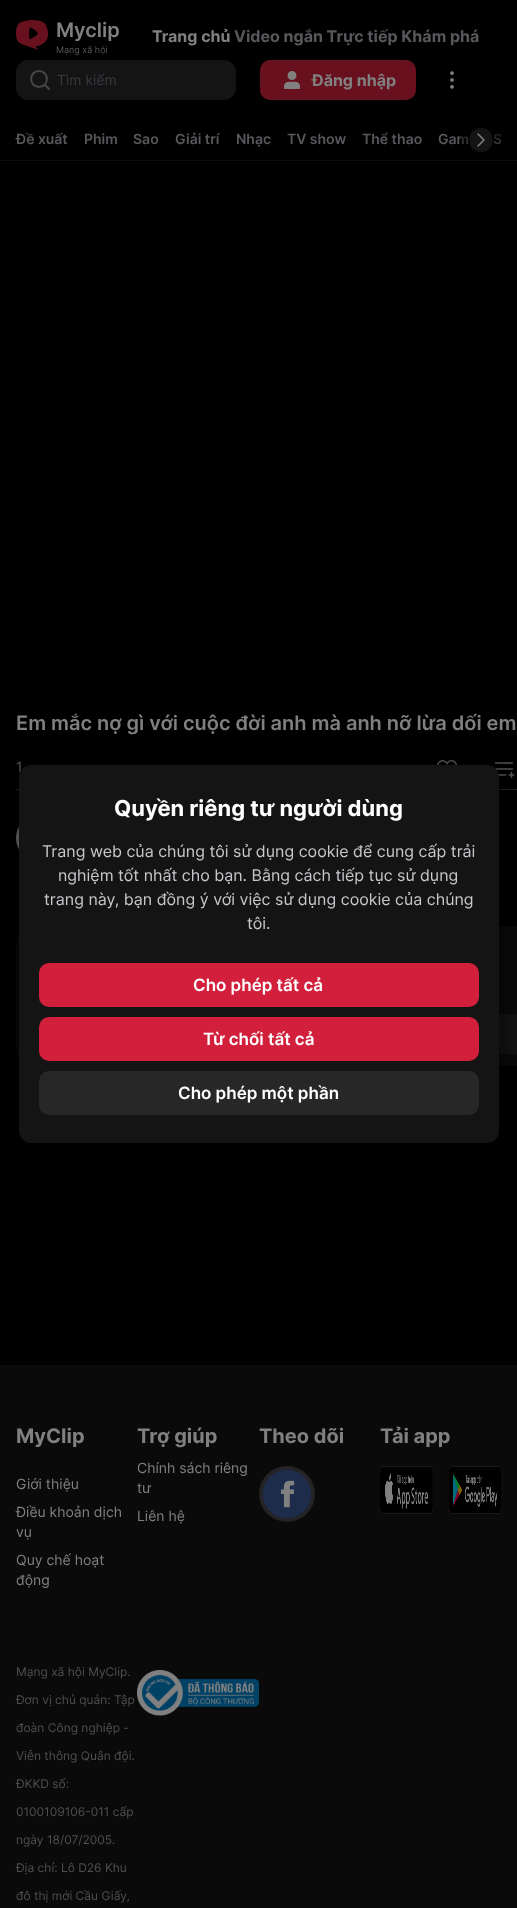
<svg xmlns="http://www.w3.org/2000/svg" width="517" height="1908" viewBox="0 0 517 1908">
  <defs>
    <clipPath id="clip1"><path d="M16 125h485v30H16z"/></clipPath>
    <linearGradient id="g1" gradientUnits="userSpaceOnUse" x1="481" y1="155" x2="481" y2="125"><stop offset="0.07" stop-color="#000" stop-opacity="0"/><stop offset="1" stop-color="#000"/></linearGradient>
  </defs>
  <rect width="100%" height="100%" fill="#000"/>
  <image x="16" y="20" width="32" height="30" href="img/1.png"/>
  <rect x="16.5" y="60.5" width="219" height="39" rx="11.5" fill="#141414" stroke="#141414"/>
  <path d="M39 87C49.5 87 49.5 71 39 71C28.5 71 28.5 87 39 87M49 89L44.5 84.5" fill="none" stroke="#45464a" stroke-width="2" stroke-linecap="round" stroke-linejoin="round"/>
  <rect x="260" y="60" width="156" height="40" rx="10" fill="#69101e"/>
  <image x="284" y="71" width="16" height="18" href="img/2.png"/>
  <image x="450" y="71" width="4" height="18" href="img/3.png"/>
  <path d="M0 160h517v1H0z" fill="#0d0d0d"/>
  <image x="437" y="760" width="20" height="5" href="img/4.png"/>
  <image x="495" y="762" width="20" height="16" href="img/5.png"/>
  <path d="M16 789h501v1H16z" fill="#242426"/>
  <image x="16" y="826" width="3" height="24" href="img/6.png"/>
  <rect x="16" y="926" width="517" height="140" rx="16" fill="#0a0a0a"/>
  <path d="M499 1015h18v38H499z" fill="#141414"/>
  <path d="M80.5 1014.5h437v39H80.5z" fill="none" stroke="#141414"/>
  <path d="M0 1365h517v543H0z" fill="#0a0a0a"/>
  <circle cx="287" cy="1494" r="28" fill="#242426"/>
  <image x="263" y="1470" width="48" height="48" href="img/7.png"/>
  <image x="380" y="1466" width="53" height="48" href="img/8.png"/>
  <image x="449" y="1466" width="52" height="48" href="img/9.png"/>
  <image x="137" y="1670" width="122" height="46" href="img/10.png"/>
  <rect x="19" y="775" width="480" height="378" rx="12" fill="#000000cc" filter="blur(15px)"/>
  <text x="56" y="37" font-family="Inter" font-size="20" font-weight="600" fill="#808080">Myclip</text>
  <text x="56" y="53" font-family="Inter" font-size="9" fill="#58585c">Mạng xã hội</text>
  <text x="152" y="42" font-family="Inter" font-size="16" font-weight="bold" fill="#808080">Trang chủ</text>
  <text x="234" y="42" font-family="Inter" font-size="16" font-weight="bold" fill="#58585c">Video ngắn Trực tiếp Khám phá</text>
  <text x="57" y="85" font-family="Inter" font-size="14" fill="#363940">Tìm kiếm</text>
  <text x="312" y="86" font-family="Inter" font-size="16" font-weight="bold" fill="#808080">Đăng nhập</text>
  <g font-family="Inter" font-size="14" font-weight="600" fill="#58585c">
    <text x="16" y="144">Đề xuất</text>
    <text x="84" y="144">Phim</text>
    <text x="133" y="144">Sao</text>
    <text x="175" y="144">Giải trí</text>
    <text x="236" y="144">Nhạc</text>
    <text x="287" y="144">TV show</text>
    <text x="362" y="144">Thể thao</text>
    <text x="438" y="144">Gam</text>
  </g>
  <g clip-path="url(#clip1)">
    <text x="493" y="144" font-family="Inter" font-size="14" font-weight="600" fill="#58585c">S</text>
  </g>
  <path d="M461 133h40v12H461z" fill="url(#g1)"/>
  <path d="M481 152C465.5 152 465.5 128 481 128C496.5 128 496.5 152 481 152Z" fill="#141414"/>
  <path d="M478 146L484 140L478 134" fill="none" stroke="#808080" stroke-width="1.5" stroke-linecap="round" stroke-linejoin="round"/>
  <text x="16" y="730" font-family="Inter" font-size="20" font-weight="600" fill="#808080">Em mắc nợ gì với cuộc đời anh mà anh nỡ lừa dối em</text>
  <text x="16" y="772" font-family="Inter" font-size="14" fill="#58585c">1</text>
  <text x="16" y="1443" font-family="Inter" font-size="20" font-weight="bold" fill="#808080">MyClip</text>
  <g font-family="Inter" font-size="14" fill="#808080">
    <text x="16" y="1489">Giới thiệu</text>
    <text x="16" y="1517">Điều khoản dịch</text>
    <text x="16" y="1537">vụ</text>
    <text x="16" y="1565">Quy chế hoạt</text>
    <text x="16" y="1585">động</text>
  </g>
  <text x="137" y="1443" font-family="Inter" font-size="20" font-weight="bold" fill="#808080">Trợ giúp</text>
  <g font-family="Inter" font-size="14" fill="#808080">
    <text x="137" y="1473">Chính sách riêng</text>
    <text x="137" y="1493">tư</text>
    <text x="137" y="1521">Liên hệ</text>
  </g>
  <g font-family="Inter" font-size="20" font-weight="bold" fill="#808080">
    <text x="259" y="1443">Theo dõi</text>
    <text x="380" y="1443">Tải app</text>
  </g>
  <g font-family="Inter" font-size="12" fill="#4f4f4f">
    <text x="16" y="1676">Mạng xã hội MyClip.</text>
    <text x="16" y="1704">Đơn vị chủ quản: Tập</text>
    <text x="16" y="1732">đoàn Công nghiệp -</text>
    <text x="16" y="1760">Viễn thông Quân đội.</text>
    <text x="16" y="1788">ĐKKD số:</text>
    <text x="16" y="1816">0100109106-011 cấp</text>
    <text x="16" y="1844">ngày 18/07/2005.</text>
    <text x="16" y="1872">Địa chỉ: Lô D26 Khu</text>
    <text x="16" y="1900">đô thị mới Cầu Giấy,</text>
  </g>
  <rect x="19" y="765" width="480" height="378" rx="12" fill="#141414"/>
  <text x="114" y="816" font-family="Inter" font-size="22" font-weight="bold" fill="#fff">Quyền riêng tư người dùng</text>
  <g font-family="Inter" font-size="16" fill="#c7c7cc">
    <text x="42" y="857">Trang web của chúng tôi sử dụng cookie để cung cấp trải</text>
    <text x="58" y="881">nghiệm tốt nhất cho bạn. Bằng cách tiếp tục sử dụng</text>
    <text x="44" y="905">trang này, bạn đồng ý với việc sử dụng cookie của chúng</text>
    <text x="247" y="929">tôi.</text>
  </g>
  <rect x="39" y="963" width="440" height="44" rx="10" fill="#d21f3c"/>
  <text x="193" y="991" font-family="Inter" font-size="17" font-weight="600" fill="#fff">Cho phép tất cả</text>
  <rect x="39" y="1017" width="440" height="44" rx="10" fill="#d21f3c"/>
  <text x="203" y="1045" font-family="Inter" font-size="17" font-weight="600" fill="#fff">Từ chối tất cả</text>
  <rect x="39" y="1071" width="440" height="44" rx="10" fill="#272728"/>
  <text x="178" y="1099" font-family="Inter" font-size="17" font-weight="600" fill="#fff">Cho phép một phần</text>
</svg>
